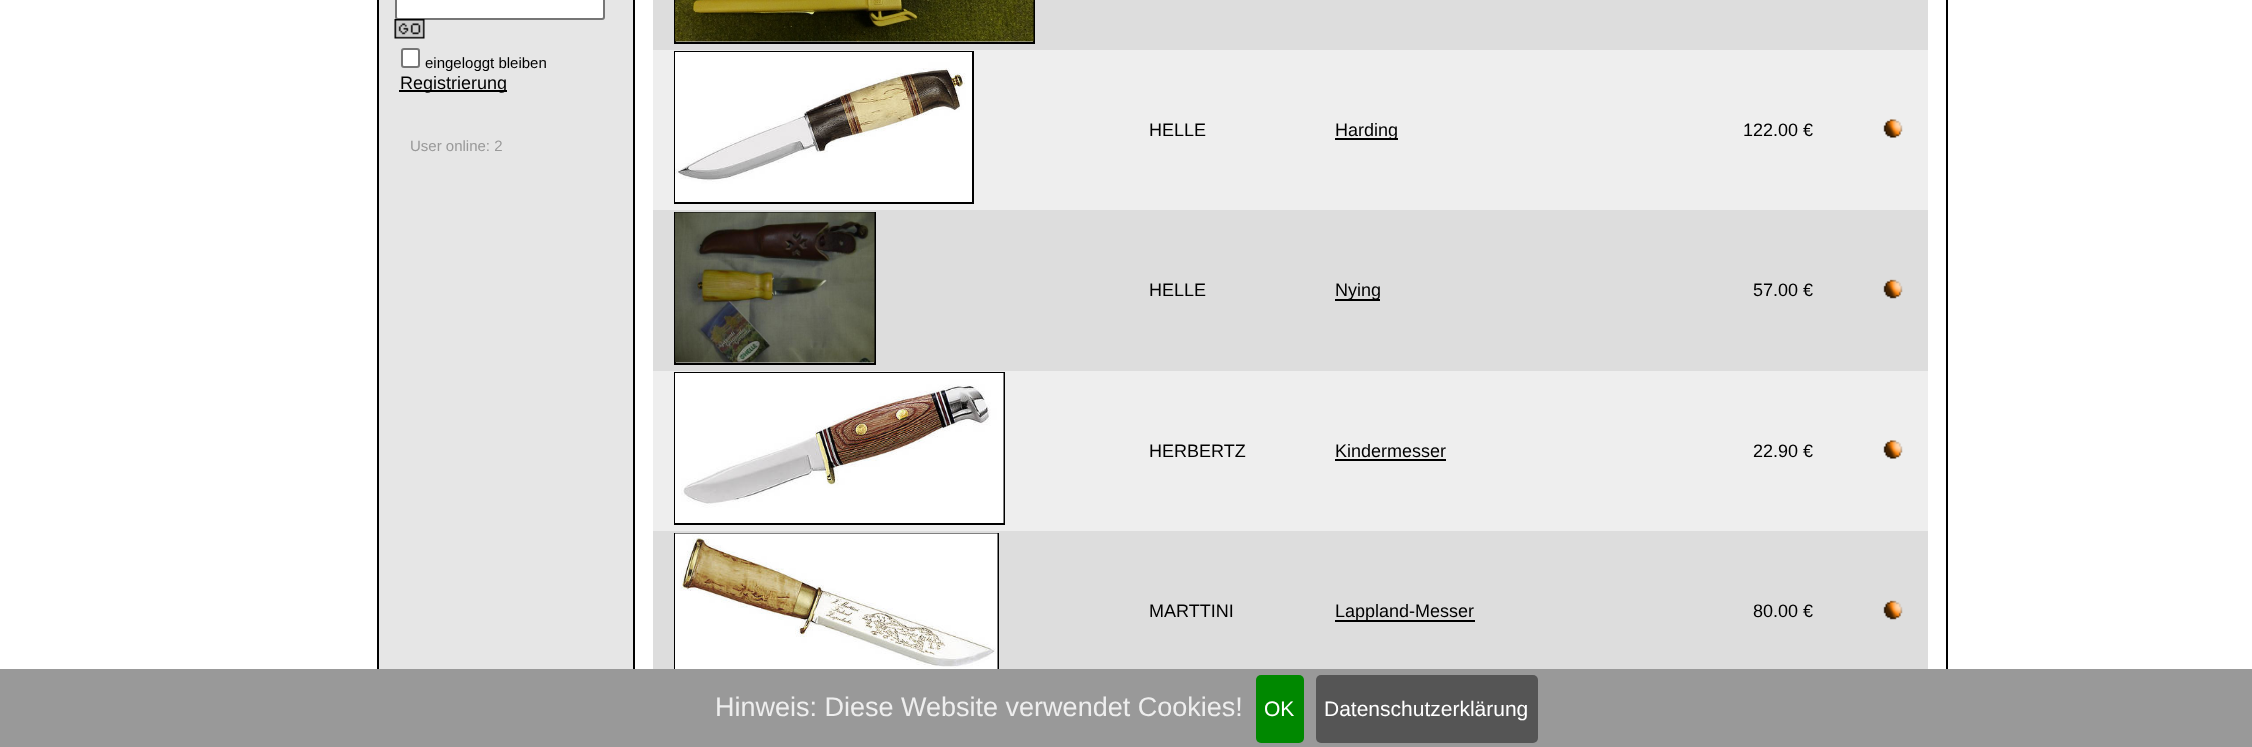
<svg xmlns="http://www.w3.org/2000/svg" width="2252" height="747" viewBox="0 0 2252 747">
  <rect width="100%" height="100%" fill="#fff"/>
  <path d="M1946 0h2v669H1946z" fill="#000"/>
  <path d="M377 0h2v669H377z" fill="#000"/>
  <path d="M379 0h254v669H379z" fill="#e6e6e6"/>
  <path d="M633 0h2v669H633z" fill="#000"/>
  <rect x="396" y="-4" width="208" height="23" rx="2" fill="#fff" stroke="#767676" stroke-width="2"/>
  <image x="394" y="19" width="31" height="20" href="img/1.png"/>
  <rect x="402" y="49" width="17" height="18" rx="2" fill="#fff" stroke="#767676" stroke-width="2"/>
  <path d="M399 90h108v2H399z" fill="#000"/>
  <path d="M653 0h1275v50H653z" fill="#ddd"/>
  <path d="M675 -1h359v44H675z" fill="none" stroke="#000" stroke-width="2"/>
  <image x="675" y="0" width="359" height="42" href="img/2.png"/>
  <path d="M653 50h1275v160H653z" fill="#eee"/>
  <path d="M675 52h298v151H675z" fill="none" stroke="#000" stroke-width="2"/>
  <image x="675" y="52" width="297" height="150" href="img/3.png"/>
  <path d="M1335 138h63v2H1335z" fill="#000"/>
  <image x="1883" y="119" width="20" height="19" href="img/4.png"/>
  <path d="M653 210h1275v161H653z" fill="#ddd"/>
  <path d="M675 213h200v151H675z" fill="none" stroke="#000" stroke-width="2"/>
  <image x="675" y="212" width="200" height="151" href="img/5.png"/>
  <path d="M1335 299h45v2H1335z" fill="#000"/>
  <image x="1883" y="279" width="20" height="20" href="img/6.png"/>
  <path d="M653 371h1275v160H653z" fill="#eee"/>
  <path d="M675 373h329v151H675z" fill="none" stroke="#000" stroke-width="2"/>
  <image x="675" y="373" width="329" height="150" href="img/7.png"/>
  <path d="M1335 459h111v2H1335z" fill="#000"/>
  <image x="1883" y="440" width="20" height="19" href="img/4.png"/>
  <path d="M653 531h1275v138H653z" fill="#ddd"/>
  <path d="M675 534h323v151H675z" fill="none" stroke="#000" stroke-width="2"/>
  <image x="675" y="533" width="323" height="136" href="img/8.png"/>
  <path d="M1335 620h140v2H1335z" fill="#000"/>
  <image x="1883" y="600" width="20" height="20" href="img/6.png"/>
  <path d="M0 669h2252v78H0z" fill="#999"/>
  <rect x="1256" y="675" width="48" height="68" rx="5" fill="#080"/>
  <rect x="1316" y="675" width="222" height="68" rx="5" fill="#555"/>
  <text x="425" y="68" font-family="Liberation Sans" font-size="15" fill="#000">eingeloggt bleiben</text>
  <text x="400" y="89" font-family="Liberation Sans" font-size="18" fill="#000">Registrierung</text>
  <text x="410" y="151" font-family="Liberation Sans" font-size="15" fill="#999">User online: 2</text>
  <g font-family="Liberation Sans" font-size="18" fill="#000">
    <text x="1149" y="136">HELLE</text>
    <text x="1335" y="136">Harding</text>
    <text x="1743" y="136">122.00 €</text>
    <text x="1149" y="296">HELLE</text>
    <text x="1335" y="296">Nying</text>
    <text x="1753" y="296">57.00 €</text>
    <text x="1149" y="457">HERBERTZ</text>
    <text x="1335" y="457">Kindermesser</text>
    <text x="1753" y="457">22.90 €</text>
    <text x="1149" y="617">MARTTINI</text>
    <text x="1335" y="617">Lappland-Messer</text>
    <text x="1753" y="617">80.00 €</text>
  </g>
  <text x="715" y="716" font-family="Liberation Sans" font-size="27" fill="#eee">Hinweis: Diese Website verwendet Cookies!</text>
  <g font-family="Liberation Sans" font-size="21" fill="#fff">
    <text x="1264" y="716">OK</text>
    <text x="1324" y="716">Datenschutzerklärung</text>
  </g>
</svg>
